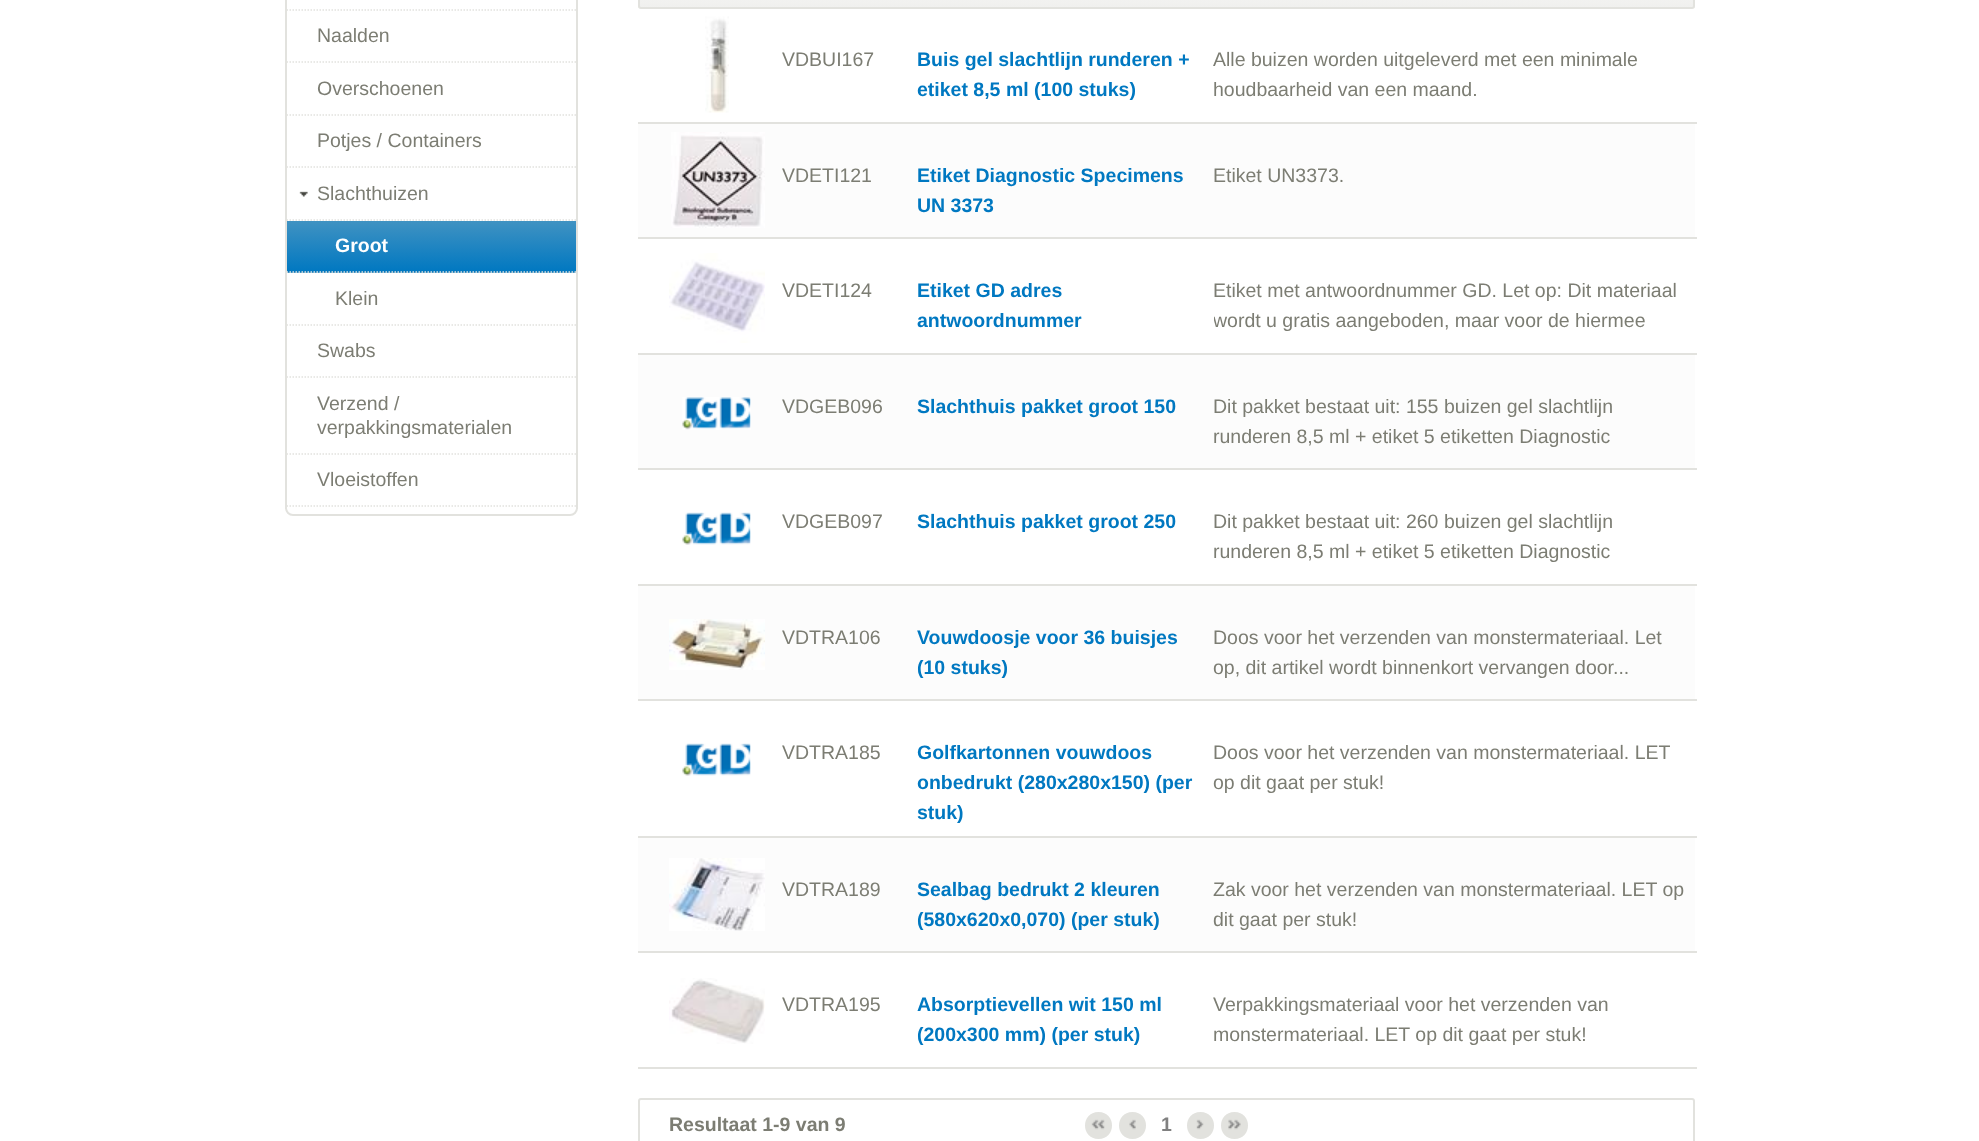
<svg xmlns="http://www.w3.org/2000/svg" width="1979" height="1141" viewBox="0 0 1979 1141">
  <defs>
    <linearGradient id="g1" gradientUnits="userSpaceOnUse" x1="431" y1="221" x2="431" y2="272"><stop offset="0" stop-color="#4092c2"/><stop offset="1" stop-color="#0078c1"/></linearGradient>
    <linearGradient id="g2" gradientUnits="userSpaceOnUse" x1="431" y1="272" x2="431" y2="323"><stop offset="0" stop-color="#4092c2"/><stop offset="1" stop-color="#0078c1"/></linearGradient>
    <clipPath id="clip1"><rect x="638" y="-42" width="1057" height="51" rx="3"/></clipPath>
    <linearGradient id="g3" gradientUnits="userSpaceOnUse" x1="1166" y1="-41" x2="1166" y2="7.5"><stop offset="0" stop-color="#fbfbfb"/><stop offset="1" stop-color="#f0f0ee"/></linearGradient>
    <clipPath id="clip2"><path d="M1214 276h474v56H1214z"/></clipPath>
  </defs>
  <rect width="100%" height="100%" fill="#fff"/>
  <rect x="286" y="-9" width="291" height="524" rx="7" fill="none" stroke="#e2e2de" stroke-width="2"/>
  <path d="M286.5 10H576" fill="none" stroke="#e2e2de" stroke-width="1.5" stroke-dasharray="1.5 1.5"/>
  <path d="M286.5 62H576" fill="none" stroke="#e2e2de" stroke-width="1.5" stroke-dasharray="1.5 1.5"/>
  <path d="M286.5 115H576" fill="none" stroke="#e2e2de" stroke-width="1.5" stroke-dasharray="1.5 1.5"/>
  <path d="M286.5 167H576" fill="none" stroke="#e2e2de" stroke-width="1.5" stroke-dasharray="1.5 1.5"/>
  <image x="299" y="191" width="9" height="6" href="img/1.png"/>
  <path d="M286.5 220H576" fill="none" stroke="#e2e2de" stroke-width="1.5" stroke-dasharray="1.5 1.5"/>
  <path d="M287 221h289v51H287z" fill="url(#g1)"/>
  <path d="M287 272h289v1H287z" fill="url(#g2)"/>
  <path d="M286.5 272H576" fill="none" stroke="#e2e2de" stroke-width="1.5" stroke-dasharray="1.5 1.5"/>
  <path d="M286.5 325H576" fill="none" stroke="#e2e2de" stroke-width="1.5" stroke-dasharray="1.5 1.5"/>
  <path d="M286.5 377H576" fill="none" stroke="#e2e2de" stroke-width="1.5" stroke-dasharray="1.5 1.5"/>
  <path d="M286.5 454H576" fill="none" stroke="#e2e2de" stroke-width="1.5" stroke-dasharray="1.5 1.5"/>
  <path d="M286.5 506H576" fill="none" stroke="#e2e2de" stroke-width="1.5" stroke-dasharray="1.5 1.5"/>
  <g clip-path="url(#clip1)">
    <path d="M638 0h1057v8H638z" fill="url(#g3)"/>
  </g>
  <rect x="639" y="-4" width="1055" height="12" rx="2" fill="none" stroke="#e2e2de" stroke-width="2"/>
  <image x="705" y="16" width="24" height="97" href="img/2.png"/>
  <path d="M638 122h1059v2H638z" fill="#e2e2de"/>
  <path d="M638 124h1057v113H638z" fill="#fcfcfc"/>
  <image x="671" y="132" width="94" height="96" href="img/3.png"/>
  <path d="M638 237h1059v2H638z" fill="#e2e2de"/>
  <image x="669" y="253" width="96" height="90" href="img/4.png"/>
  <path d="M638 353h1059v2H638z" fill="#e2e2de"/>
  <path d="M638 355h1057v113H638z" fill="#fcfcfc"/>
  <image x="682" y="397" width="69" height="33" href="img/5.png"/>
  <path d="M638 468h1059v2H638z" fill="#e2e2de"/>
  <image x="682" y="512" width="69" height="33" href="img/6.png"/>
  <path d="M638 584h1059v2H638z" fill="#e2e2de"/>
  <path d="M638 586h1057v113H638z" fill="#fcfcfc"/>
  <image x="669" y="619" width="96" height="51" href="img/7.png"/>
  <path d="M638 699h1059v2H638z" fill="#e2e2de"/>
  <image x="682" y="743" width="69" height="33" href="img/6.png"/>
  <path d="M638 836h1059v2H638z" fill="#e2e2de"/>
  <path d="M638 838h1057v113H638z" fill="#fcfcfc"/>
  <image x="669" y="858" width="96" height="73" href="img/8.png"/>
  <path d="M638 951h1059v2H638z" fill="#e2e2de"/>
  <image x="669" y="978" width="96" height="66" href="img/9.png"/>
  <path d="M638 1067h1059v2H638z" fill="#e2e2de"/>
  <rect x="639" y="1099" width="1055" height="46" rx="2" fill="none" stroke="#e2e2de" stroke-width="2"/>
  <path d="M1098.5 1112C1116.5 1112 1116.5 1139 1098.5 1139C1080.5 1139 1080.5 1112 1098.5 1112Z" fill="#e2e2de"/>
  <image x="1091" y="1119" width="14" height="11" href="img/10.png"/>
  <path d="M1132.5 1112C1150.5 1112 1150.5 1139 1132.5 1139C1114.5 1139 1114.5 1112 1132.5 1112Z" fill="#e2e2de"/>
  <image x="1129" y="1119" width="7" height="11" href="img/11.png"/>
  <path d="M1200.5 1112C1218.5 1112 1218.5 1139 1200.5 1139C1182.5 1139 1182.5 1112 1200.5 1112Z" fill="#e2e2de"/>
  <image x="1196" y="1119" width="8" height="11" href="img/12.png"/>
  <path d="M1234.5 1112C1252.5 1112 1252.5 1139 1234.5 1139C1216.5 1139 1216.5 1112 1234.5 1112Z" fill="#e2e2de"/>
  <image x="1228" y="1119" width="13" height="11" href="img/13.png"/>
  <g font-family="Liberation Sans" font-size="19.5" fill="#7c7d73">
    <text x="317" y="42">Naalden</text>
    <text x="317" y="95">Overschoenen</text>
    <text x="317" y="147">Potjes / Containers</text>
    <text x="317" y="200">Slachthuizen</text>
  </g>
  <text x="335" y="252" font-family="Liberation Sans" font-size="19.5" font-weight="bold" fill="#fff">Groot</text>
  <g font-family="Liberation Sans" font-size="19.5" fill="#7c7d73">
    <text x="335" y="305">Klein</text>
    <text x="317" y="357">Swabs</text>
    <text x="317" y="410">Verzend /</text>
    <text x="317" y="434">verpakkingsmaterialen</text>
    <text x="317" y="486">Vloeistoffen</text>
    <text x="782" y="66">VDBUI167</text>
  </g>
  <g font-family="Liberation Sans" font-size="19.5" font-weight="bold" fill="#0078c1">
    <text x="917" y="66">Buis gel slachtlijn runderen +</text>
    <text x="917" y="96">etiket 8,5 ml (100 stuks)</text>
  </g>
  <g font-family="Liberation Sans" font-size="19.5" fill="#7c7d73">
    <text x="1213" y="66">Alle buizen worden uitgeleverd met een minimale</text>
    <text x="1213" y="96">houdbaarheid van een maand.</text>
    <text x="782" y="182">VDETI121</text>
  </g>
  <g font-family="Liberation Sans" font-size="19.5" font-weight="bold" fill="#0078c1">
    <text x="917" y="182">Etiket Diagnostic Specimens</text>
    <text x="917" y="212">UN 3373</text>
  </g>
  <g font-family="Liberation Sans" font-size="19.5" fill="#7c7d73">
    <text x="1213" y="182">Etiket UN3373.</text>
    <text x="782" y="297">VDETI124</text>
  </g>
  <g font-family="Liberation Sans" font-size="19.5" font-weight="bold" fill="#0078c1">
    <text x="917" y="297">Etiket GD adres</text>
    <text x="917" y="327">antwoordnummer</text>
  </g>
  <text x="1213" y="297" font-family="Liberation Sans" font-size="19.5" fill="#7c7d73">Etiket met antwoordnummer GD. Let op: Dit materiaal</text>
  <g clip-path="url(#clip2)">
    <text x="1213" y="327" font-family="Liberation Sans" font-size="19.5" fill="#7c7d73">wordt u gratis aangeboden, maar voor de hiermee</text>
  </g>
  <text x="782" y="413" font-family="Liberation Sans" font-size="19.5" fill="#7c7d73">VDGEB096</text>
  <text x="917" y="413" font-family="Liberation Sans" font-size="19.5" font-weight="bold" fill="#0078c1">Slachthuis pakket groot 150</text>
  <g font-family="Liberation Sans" font-size="19.5" fill="#7c7d73">
    <text x="1213" y="413">Dit pakket bestaat uit: 155 buizen gel slachtlijn</text>
    <text x="1213" y="443">runderen 8,5 ml + etiket 5 etiketten Diagnostic</text>
    <text x="782" y="528">VDGEB097</text>
  </g>
  <text x="917" y="528" font-family="Liberation Sans" font-size="19.5" font-weight="bold" fill="#0078c1">Slachthuis pakket groot 250</text>
  <g font-family="Liberation Sans" font-size="19.5" fill="#7c7d73">
    <text x="1213" y="528">Dit pakket bestaat uit: 260 buizen gel slachtlijn</text>
    <text x="1213" y="558">runderen 8,5 ml + etiket 5 etiketten Diagnostic</text>
    <text x="782" y="644">VDTRA106</text>
  </g>
  <g font-family="Liberation Sans" font-size="19.5" font-weight="bold" fill="#0078c1">
    <text x="917" y="644">Vouwdoosje voor 36 buisjes</text>
    <text x="917" y="674">(10 stuks)</text>
  </g>
  <g font-family="Liberation Sans" font-size="19.5" fill="#7c7d73">
    <text x="1213" y="644">Doos voor het verzenden van monstermateriaal. Let</text>
    <text x="1213" y="674">op, dit artikel wordt binnenkort vervangen door...</text>
    <text x="782" y="759">VDTRA185</text>
  </g>
  <g font-family="Liberation Sans" font-size="19.5" font-weight="bold" fill="#0078c1">
    <text x="917" y="759">Golfkartonnen vouwdoos</text>
    <text x="917" y="789">onbedrukt (280x280x150) (per</text>
    <text x="917" y="819">stuk)</text>
  </g>
  <g font-family="Liberation Sans" font-size="19.5" fill="#7c7d73">
    <text x="1213" y="759">Doos voor het verzenden van monstermateriaal. LET</text>
    <text x="1213" y="789">op dit gaat per stuk!</text>
    <text x="782" y="896">VDTRA189</text>
  </g>
  <g font-family="Liberation Sans" font-size="19.5" font-weight="bold" fill="#0078c1">
    <text x="917" y="896">Sealbag bedrukt 2 kleuren</text>
    <text x="917" y="926">(580x620x0,070) (per stuk)</text>
  </g>
  <g font-family="Liberation Sans" font-size="19.5" fill="#7c7d73">
    <text x="1213" y="896">Zak voor het verzenden van monstermateriaal. LET op</text>
    <text x="1213" y="926">dit gaat per stuk!</text>
    <text x="782" y="1011">VDTRA195</text>
  </g>
  <g font-family="Liberation Sans" font-size="19.5" font-weight="bold" fill="#0078c1">
    <text x="917" y="1011">Absorptievellen wit 150 ml</text>
    <text x="917" y="1041">(200x300 mm) (per stuk)</text>
  </g>
  <g font-family="Liberation Sans" font-size="19.5" fill="#7c7d73">
    <text x="1213" y="1011">Verpakkingsmateriaal voor het verzenden van</text>
    <text x="1213" y="1041">monstermateriaal. LET op dit gaat per stuk!</text>
  </g>
  <text x="669" y="1131" font-family="Liberation Sans" font-size="19.5" font-weight="bold" fill="#7c7d73">Resultaat 1-9 van 9</text>
  <text x="1161" y="1131" font-family="Liberation Sans" font-size="19.5" font-weight="bold" fill="#808080">1</text>
</svg>
